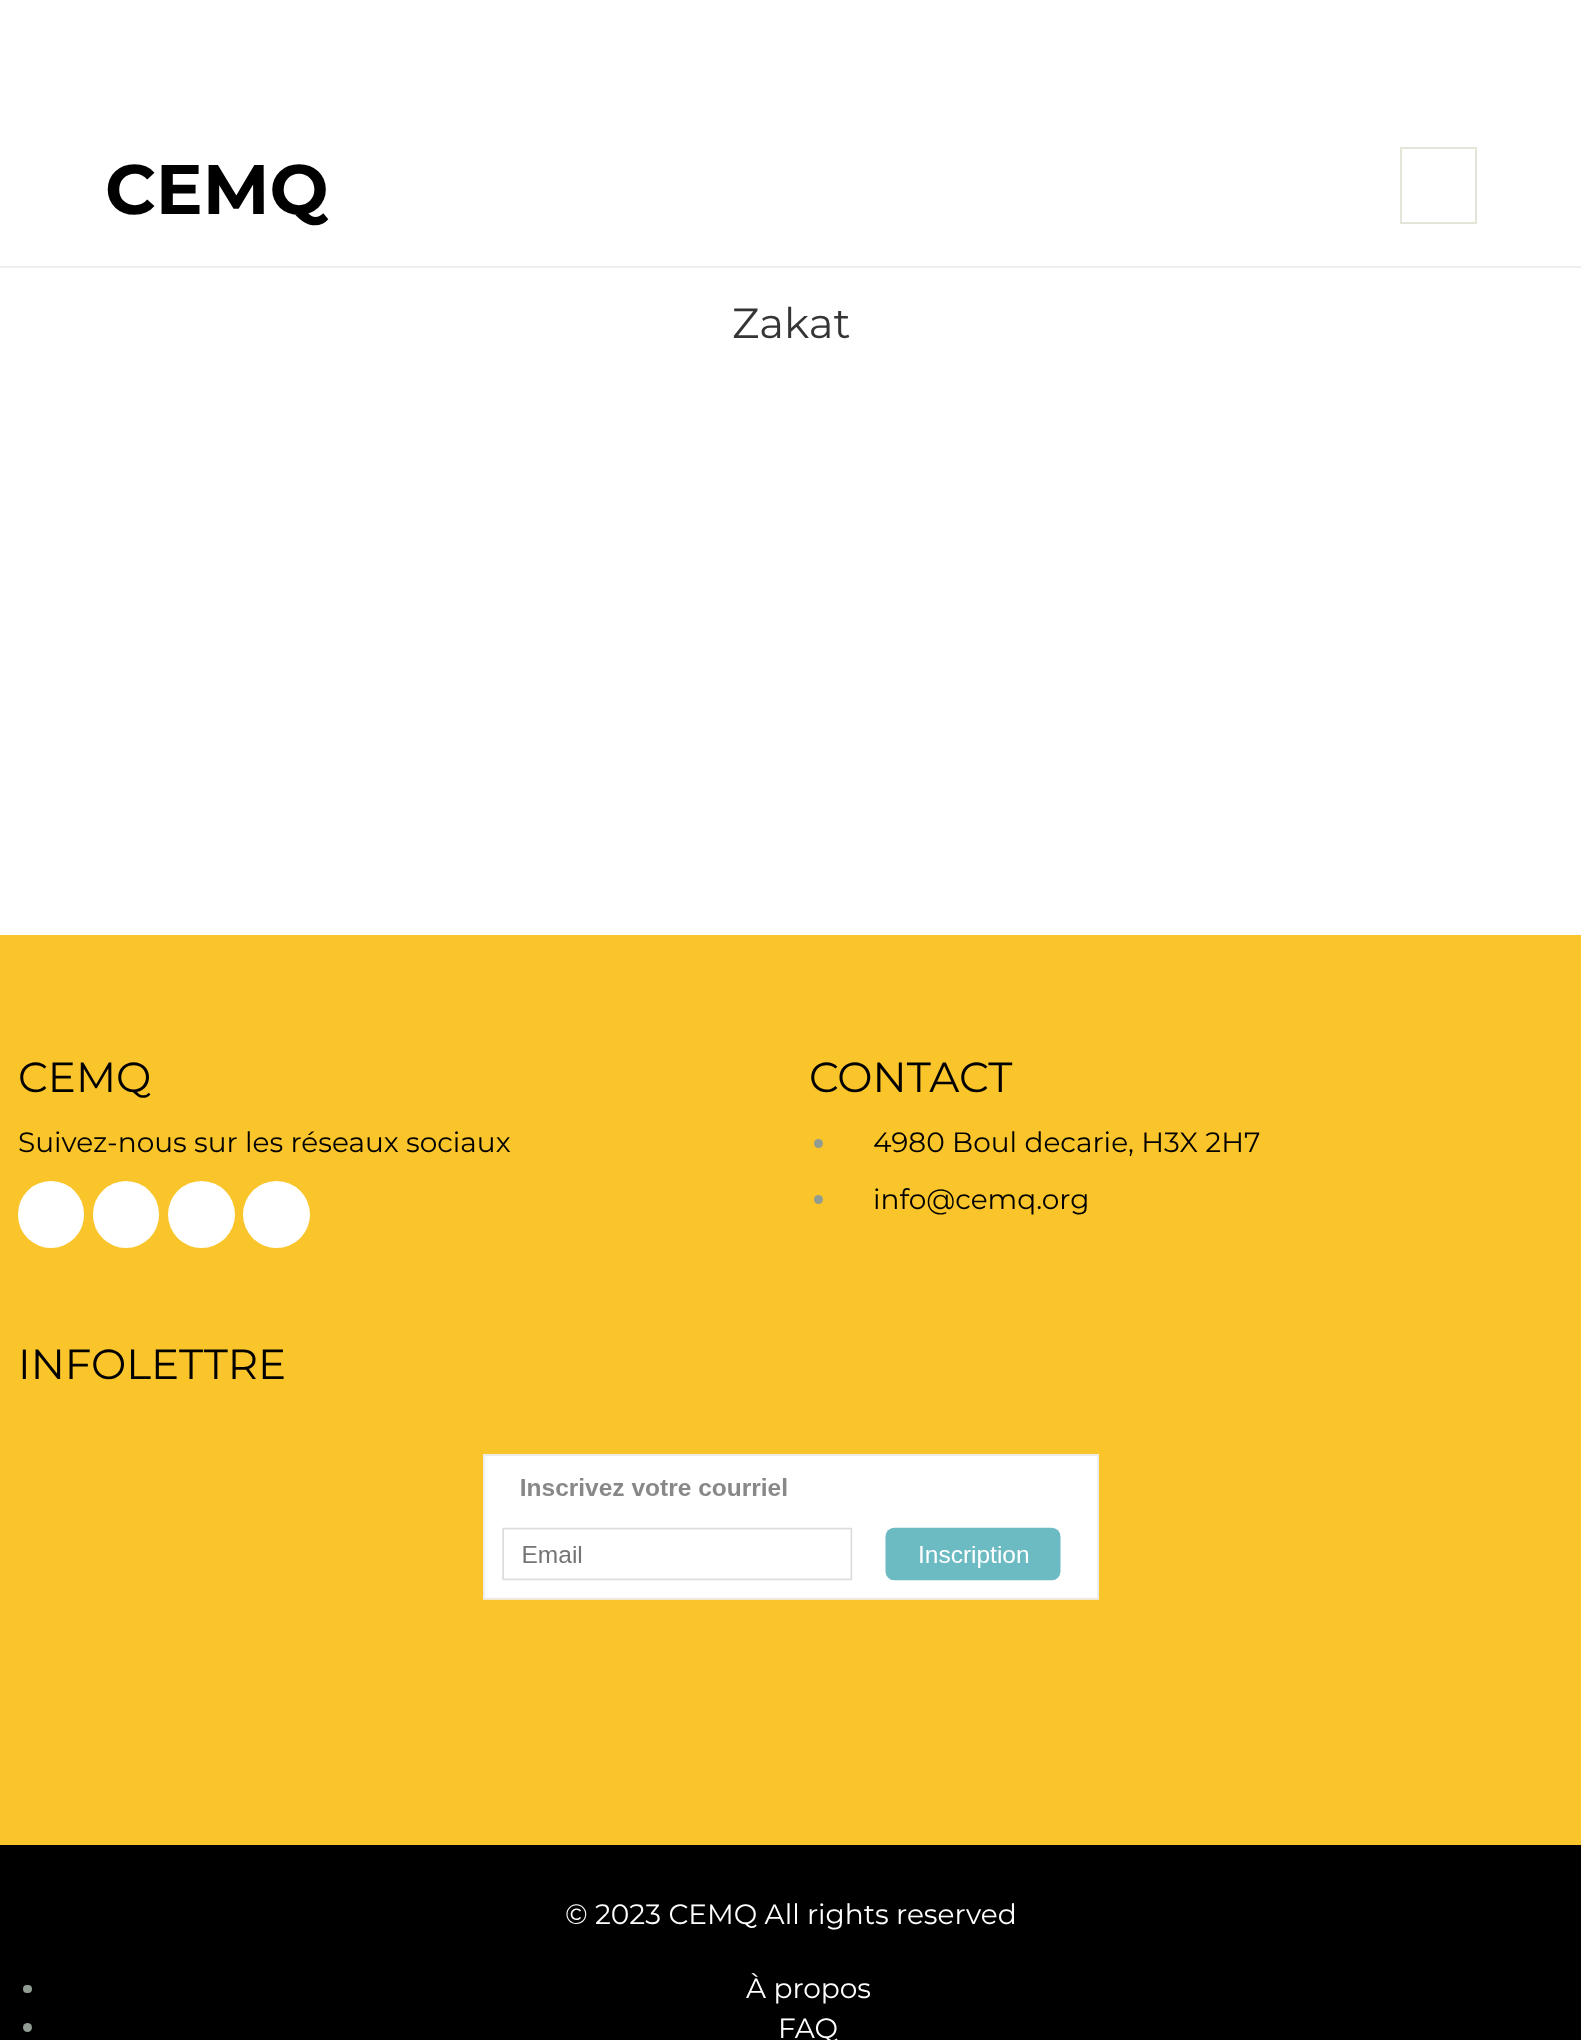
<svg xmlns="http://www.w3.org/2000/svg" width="1581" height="2040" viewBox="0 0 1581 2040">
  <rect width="100%" height="100%" fill="#fff"/>
  <path d="M0 266h1581v2H0z" fill="#eee"/>
  <path d="M1401 148h75v75H1401z" fill="none" stroke="#e4e4d9" stroke-width="2"/>
  <path d="M0 935h1581v910H0z" fill="#fac42b"/>
  <rect x="18" y="1181" width="66" height="67" rx="33" fill="#fff"/>
  <rect x="93" y="1181" width="66" height="67" rx="33" fill="#fff"/>
  <circle cx="201.5" cy="1214.5" r="33.5" fill="#fff"/>
  <circle cx="276.5" cy="1214.5" r="33.5" fill="#fff"/>
  <circle cx="818.5" cy="1143.5" r="4.5" fill="#919c93"/>
  <circle cx="818.5" cy="1199.5" r="4.5" fill="#919c93"/>
  <image x="483" y="1454" width="616" height="146" href="img/1.png"/>
  <path d="M0 1845h1581v195H0z" fill="#000"/>
  <rect x="23" y="1985" width="9" height="8" rx="4" fill="#919c93"/>
  <circle cx="27.5" cy="2027.5" r="4.5" fill="#919c93"/>
  <text x="105" y="214" font-family="Montserrat" font-size="70" font-weight="bold" fill="#000">CEMQ</text>
  <text x="732" y="338" font-family="Montserrat" font-size="42" fill="#353535">Zakat</text>
  <text x="18" y="1092" font-family="Montserrat" font-size="42" fill="#000">CEMQ</text>
  <text x="18" y="1152" font-family="Montserrat" font-size="28" fill="#000">Suivez-nous sur les réseaux sociaux</text>
  <text x="809" y="1092" font-family="Montserrat" font-size="42" fill="#000">CONTACT</text>
  <g font-family="Montserrat" font-size="28" fill="#000">
    <text x="873" y="1152">4980 Boul decarie, H3X 2H7</text>
    <text x="873" y="1209">info@cemq.org</text>
  </g>
  <text x="18" y="1379" font-family="Montserrat" font-size="42" fill="#000">INFOLETTRE</text>
  <g font-family="Montserrat" font-size="28" fill="#fff">
    <text x="565" y="1924">© 2023 CEMQ All rights reserved</text>
    <text x="746" y="1998">À propos</text>
    <text x="778" y="2038">FAQ</text>
  </g>
</svg>
